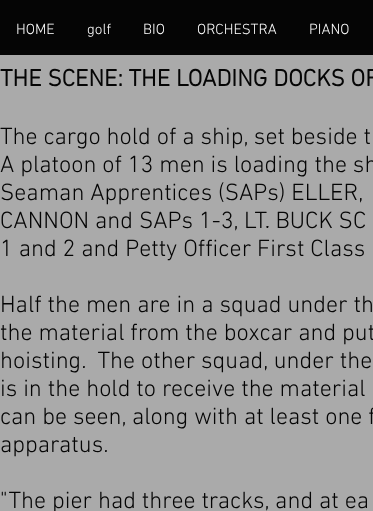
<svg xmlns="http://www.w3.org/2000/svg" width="373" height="511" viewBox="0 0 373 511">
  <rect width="100%" height="100%" fill="#aaa"/>
  <path d="M0 0h373v55H0z" fill="#050505"/>
  <g font-family="'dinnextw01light'" font-size="15" font-weight="300" fill="#fff">
    <text x="16" y="34">HOME</text>
    <text x="87" y="34">golf</text>
    <text x="143" y="34">BIO</text>
    <text x="197" y="34">ORCHESTRA</text>
    <text x="309" y="34">PIANO</text>
  </g>
  <text x="0" y="86" font-family="'dinnextw01light'" font-size="24" font-weight="bold" fill="#050505">THE SCENE: THE LOADING DOCKS OF</text>
  <g font-family="'dinnextw01light'" font-size="24" font-weight="300" fill="#050505">
    <text x="0" y="144">The cargo hold of a ship, set beside t</text>
    <text x="0" y="172">A platoon of 13 men is loading the sh</text>
    <text x="0" y="200">Seaman Apprentices (SAPs) ELLER,</text>
    <text x="0" y="228">CANNON and SAPs 1-3, LT. BUCK SC</text>
    <text x="0" y="256">1 and 2 and Petty Officer First Class</text>
    <text x="0" y="312">Half the men are in a squad under th</text>
    <text x="0" y="340">the material from the boxcar and put</text>
    <text x="0" y="368" xml:space="preserve">hoisting.  The other squad, under the</text>
    <text x="0" y="396">is in the hold to receive the material</text>
    <text x="0" y="424">can be seen, along with at least one f</text>
    <text x="0" y="452">apparatus.</text>
    <text x="0" y="508">"The pier had three tracks, and at ea</text>
  </g>
</svg>
